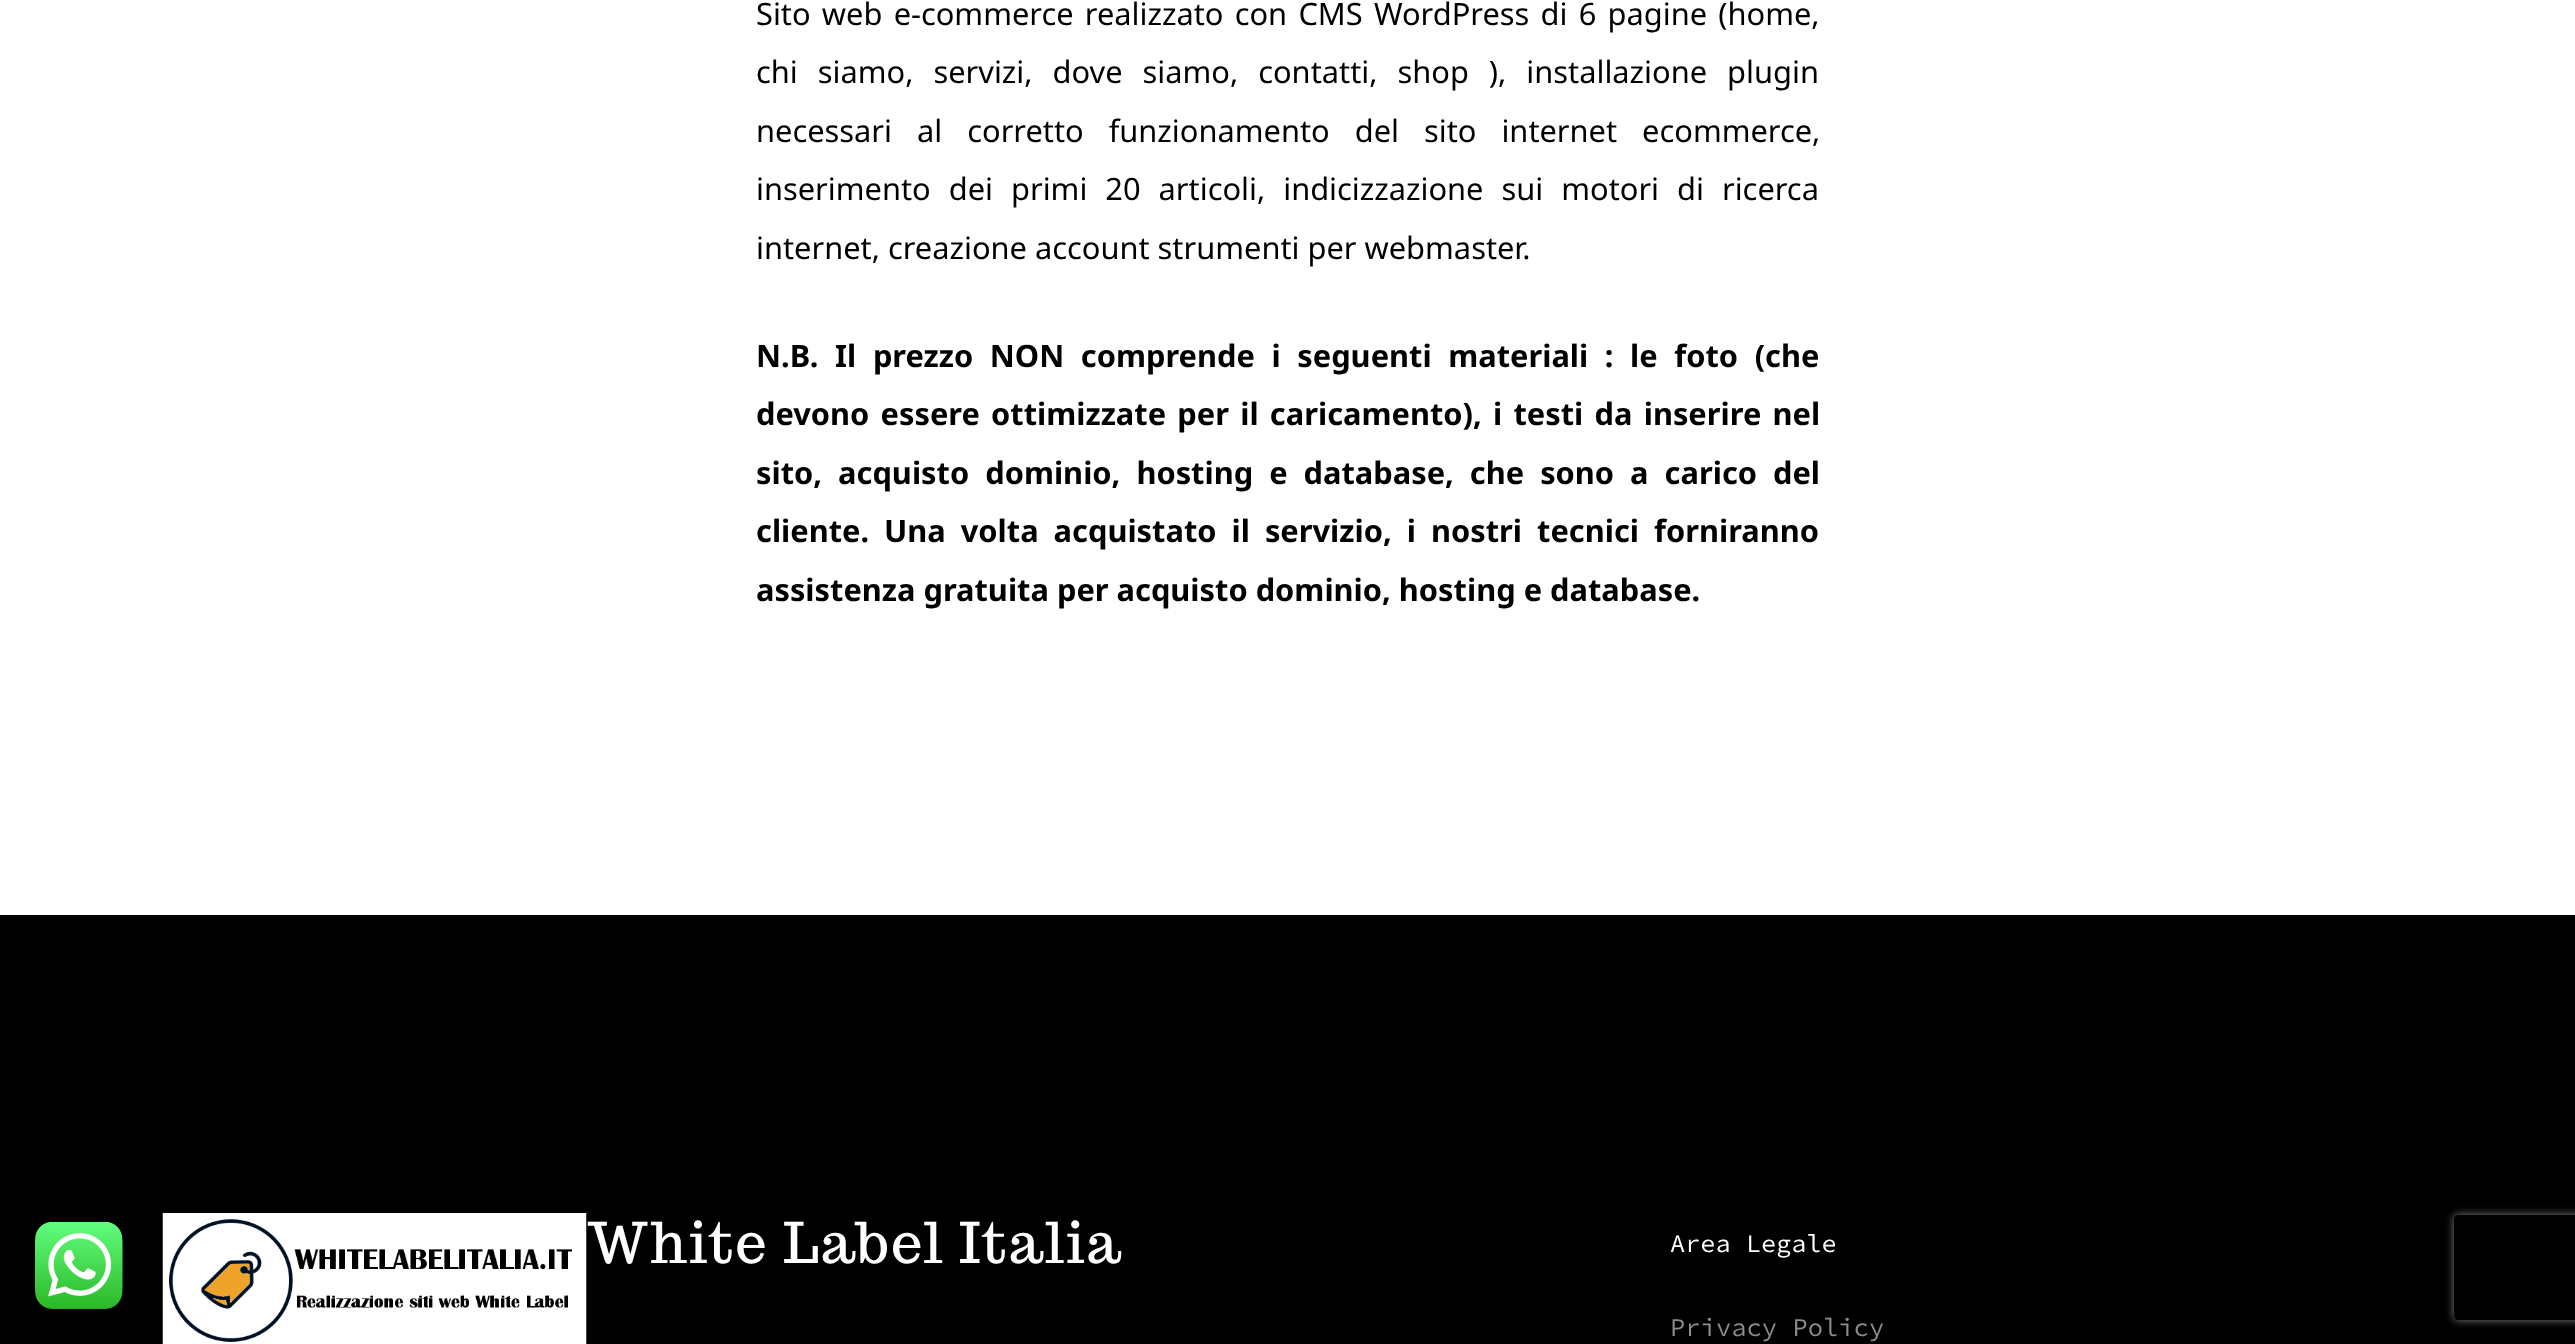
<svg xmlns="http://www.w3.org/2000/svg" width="2575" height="1344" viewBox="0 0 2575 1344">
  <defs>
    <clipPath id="clip1"><path d="M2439 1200H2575V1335H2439ZM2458 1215H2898C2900 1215 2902 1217 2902 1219V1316C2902 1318 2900 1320 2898 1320H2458C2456 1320 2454 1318 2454 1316V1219C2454 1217 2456 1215 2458 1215Z" clip-rule="evenodd"/></clipPath>
  </defs>
  <rect width="100%" height="100%" fill="#fff"/>
  <path d="M0 915h2575v429H0z" fill="#000"/>
  <image x="35" y="1222" width="88" height="87" href="img/1.png"/>
  <image x="162" y="1213" width="425" height="131" href="img/2.png"/>
  <g clip-path="url(#clip1)">
    <rect x="2454" y="1215" width="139" height="105" rx="4" fill="#808080" filter="blur(4.5px)"/>
  </g>
  <g font-family="Noto Sans" font-size="30.8" fill="#000">
    <text x="756" y="25" word-spacing="3.25">Sito web e-commerce realizzato con CMS WordPress di 6 pagine (home,</text>
    <text x="756" y="83" word-spacing="12">chi siamo, servizi, dove siamo, contatti, shop ), installazione plugin</text>
    <text x="756" y="142" word-spacing="17">necessari al corretto funzionamento del sito internet ecommerce,</text>
    <text x="756" y="200" word-spacing="10">inserimento dei primi 20 articoli, indicizzazione sui motori di ricerca</text>
    <text x="756" y="259">internet, creazione account strumenti per webmaster.</text>
  </g>
  <g font-family="Noto Sans" font-size="30.8" font-weight="bold" fill="#000">
    <text x="756" y="367" word-spacing="8.6">N.B. Il prezzo NON comprende i seguenti materiali : le foto (che</text>
    <text x="756" y="425" word-spacing="3.25">devono essere ottimizzate per il caricamento), i testi da inserire nel</text>
    <text x="756" y="484" word-spacing="8">sito, acquisto dominio, hosting e database, che sono a carico del</text>
    <text x="756" y="542">cliente.</text>
    <text x="884" y="542" word-spacing="7">Una volta acquistato il servizio, i nostri tecnici forniranno</text>
    <text x="756" y="601">assistenza gratuita per acquisto dominio, hosting e database.</text>
  </g>
  <text x="587" y="1263" font-family="Trocchi" font-size="56" letter-spacing="1.8" fill="#fff">White Label Italia</text>
  <text x="1670" y="1252" font-family="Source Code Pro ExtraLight" font-size="25.25" fill="#fff">Area Legale</text>
  <text x="1670" y="1336" font-family="Source Code Pro ExtraLight" font-size="25.5" fill="#8c8c8c">Privacy Policy</text>
</svg>
